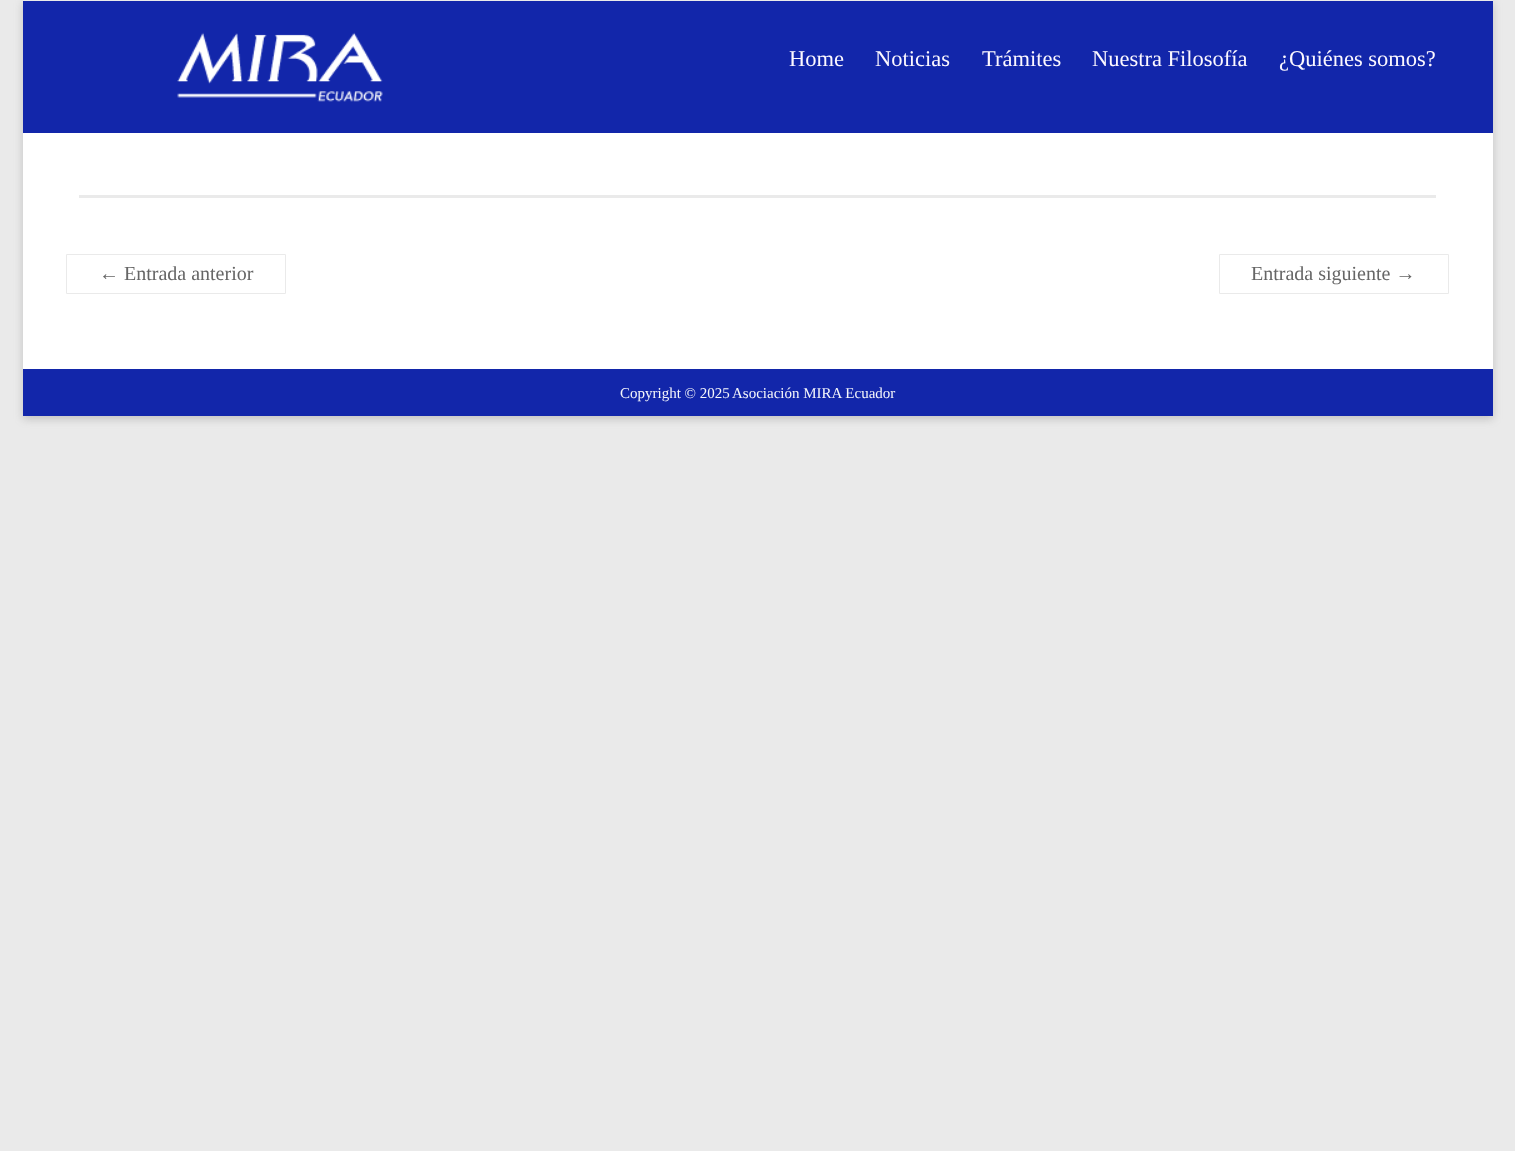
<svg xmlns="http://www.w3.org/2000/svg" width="1515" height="1151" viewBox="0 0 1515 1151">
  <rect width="100%" height="100%" fill="#eaeaea"/>
  <path d="M23 3h1470v416H23z" fill="#6464644d" filter="blur(4px)"/>
  <path d="M23 133h1470v236H23z" fill="#fff"/>
  <path d="M23 0h1470v1H23z" fill="#eaeaea"/>
  <path d="M23 1h1470v132H23z" fill="#1226aa"/>
  <image x="177" y="32" width="206" height="70" href="img/1.png"/>
  <path d="M79 195h1357v3H79z" fill="#eaeaea"/>
  <path d="M66.5 254.5h219v39H66.5z" fill="none" stroke="#eaeaea"/>
  <path d="M1219.5 254.5h229v39H1219.5z" fill="none" stroke="#eaeaea"/>
  <path d="M23 369h1470v47H23z" fill="#1226aa"/>
  <g font-family="Liberation Serif" font-size="22.5" fill="#fcf8ff">
    <text x="789" y="66">Home</text>
    <text x="875" y="66">Noticias</text>
    <text x="982" y="66">Trámites</text>
    <text x="1092" y="66">Nuestra Filosofía</text>
    <text x="1279" y="66">¿Quiénes somos?</text>
  </g>
  <g font-family="Liberation Serif" font-size="20" fill="#666">
    <text x="99" y="280">← Entrada anterior</text>
    <text x="1251" y="280">Entrada siguiente →</text>
  </g>
  <g font-family="Liberation Serif" font-size="15" fill="#f6f7fb">
    <text x="620" y="398">Copyright © 2025</text>
    <text x="732" y="398">Asociación MIRA Ecuador</text>
  </g>
</svg>
